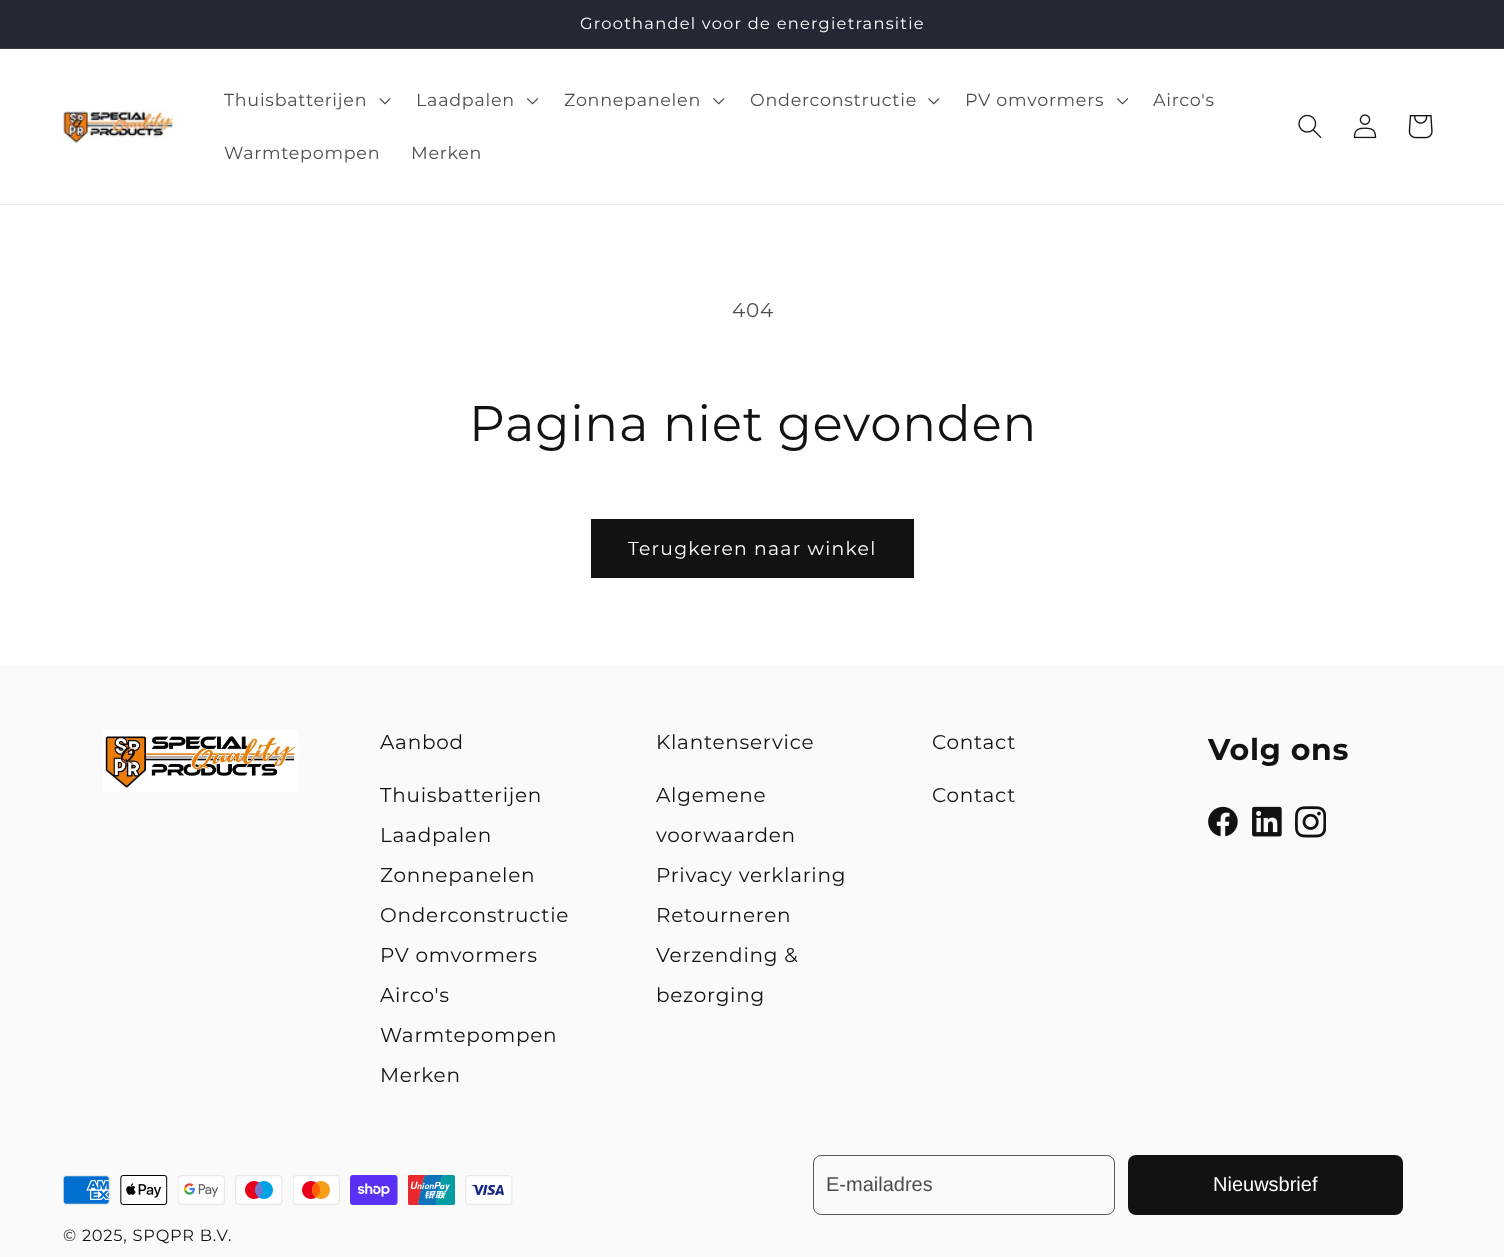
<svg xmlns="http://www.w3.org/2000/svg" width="1504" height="1257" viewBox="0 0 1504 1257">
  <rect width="100%" height="100%" fill="#fff"/>
  <path d="M0 0h1504v48H0z" fill="#242833"/>
  <path d="M0 48h1504v1H0z" fill="#363943"/>
  <path d="M0 204h1504v1H0z" fill="#ececec"/>
  <image x="62" y="109" width="112" height="36" href="img/1.png"/>
  <image x="379" y="98" width="12" height="7" href="img/2.png"/>
  <image x="526" y="98" width="13" height="7" href="img/3.png"/>
  <image x="713" y="98" width="12" height="7" href="img/4.png"/>
  <image x="928" y="98" width="12" height="7" href="img/4.png"/>
  <image x="1116" y="98" width="13" height="7" href="img/3.png"/>
  <image x="1298" y="114" width="24" height="24" href="img/5.png"/>
  <image x="1353" y="114" width="24" height="25" href="img/6.png"/>
  <image x="1408" y="115" width="25" height="24" href="img/7.png"/>
  <path d="M591 519h323v59H591z" fill="#121212"/>
  <path d="M0 665h1504v592H0z" fill="#fafafa"/>
  <image x="103" y="730" width="195" height="62" href="img/8.png"/>
  <image x="1208" y="806" width="30" height="31" href="img/9.png"/>
  <image x="1252" y="806" width="30" height="31" href="img/10.png"/>
  <image x="1295" y="806" width="31" height="32" href="img/11.png"/>
  <rect x="813.5" y="1155.5" width="301" height="59" rx="7.5" fill="none" stroke="#585858"/>
  <rect x="1128" y="1155" width="275" height="60" rx="8" fill="#121212"/>
  <image x="63" y="1175" width="47" height="30" href="img/12.png"/>
  <image x="120" y="1175" width="48" height="30" href="img/13.png"/>
  <image x="178" y="1175" width="47" height="30" href="img/14.png"/>
  <image x="235" y="1175" width="48" height="30" href="img/15.png"/>
  <image x="293" y="1175" width="47" height="30" href="img/16.png"/>
  <image x="350" y="1175" width="48" height="30" href="img/17.png"/>
  <image x="408" y="1175" width="47" height="30" href="img/18.png"/>
  <image x="465" y="1175" width="48" height="30" href="img/19.png"/>
  <text x="580" y="29" font-family="Montserrat" font-size="16.25" letter-spacing="1.25" fill="#fff">Groothandel voor de energietransitie</text>
  <g font-family="Montserrat" font-size="17.5" letter-spacing="0.75" fill="#4d4d4d">
    <text x="224" y="106">Thuisbatterijen</text>
    <text x="416" y="106">Laadpalen</text>
    <text x="564" y="106">Zonnepanelen</text>
    <text x="750" y="106">Onderconstructie</text>
    <text x="965" y="106">PV omvormers</text>
    <text x="1153" y="106">Airco's</text>
    <text x="224" y="159">Warmtepompen</text>
    <text x="411" y="159">Merken</text>
  </g>
  <text x="732" y="317" font-family="Montserrat" font-size="20" letter-spacing="0.75" fill="#4d4d4d">404</text>
  <text x="469" y="441" font-family="Montserrat" font-size="50" letter-spacing="0.75" fill="#121212">Pagina niet gevonden</text>
  <text x="628" y="555" font-family="Montserrat" font-size="18.75" letter-spacing="1.25" fill="#fff">Terugkeren naar winkel</text>
  <g font-family="Montserrat" font-size="20" letter-spacing="0.75" fill="#121212">
    <text x="380" y="749">Aanbod</text>
    <text x="380" y="802">Thuisbatterijen</text>
    <text x="380" y="842">Laadpalen</text>
    <text x="380" y="882">Zonnepanelen</text>
    <text x="380" y="922">Onderconstructie</text>
    <text x="380" y="962">PV omvormers</text>
    <text x="380" y="1002">Airco's</text>
    <text x="380" y="1042">Warmtepompen</text>
    <text x="380" y="1082">Merken</text>
    <text x="656" y="749">Klantenservice</text>
    <text x="656" y="802">Algemene</text>
    <text x="656" y="842">voorwaarden</text>
    <text x="656" y="882">Privacy verklaring</text>
    <text x="656" y="922">Retourneren</text>
    <text x="656" y="962">Verzending &amp;</text>
    <text x="656" y="1002">bezorging</text>
    <text x="932" y="749">Contact</text>
    <text x="932" y="802">Contact</text>
  </g>
  <text x="1208" y="760" font-family="Montserrat" font-size="30" font-weight="bold" letter-spacing="0.75" fill="#121212">Volg ons</text>
  <text x="826" y="1191" font-family="Liberation Sans" font-size="20" fill="#4d4d4d">E-mailadres</text>
  <text x="1213" y="1191" font-family="Liberation Sans" font-size="20" fill="#fff">Nieuwsbrief</text>
  <text x="63" y="1241" font-family="Montserrat" font-size="16.25" letter-spacing="0.75" fill="#121212">© 2025, SPQPR B.V.</text>
</svg>
